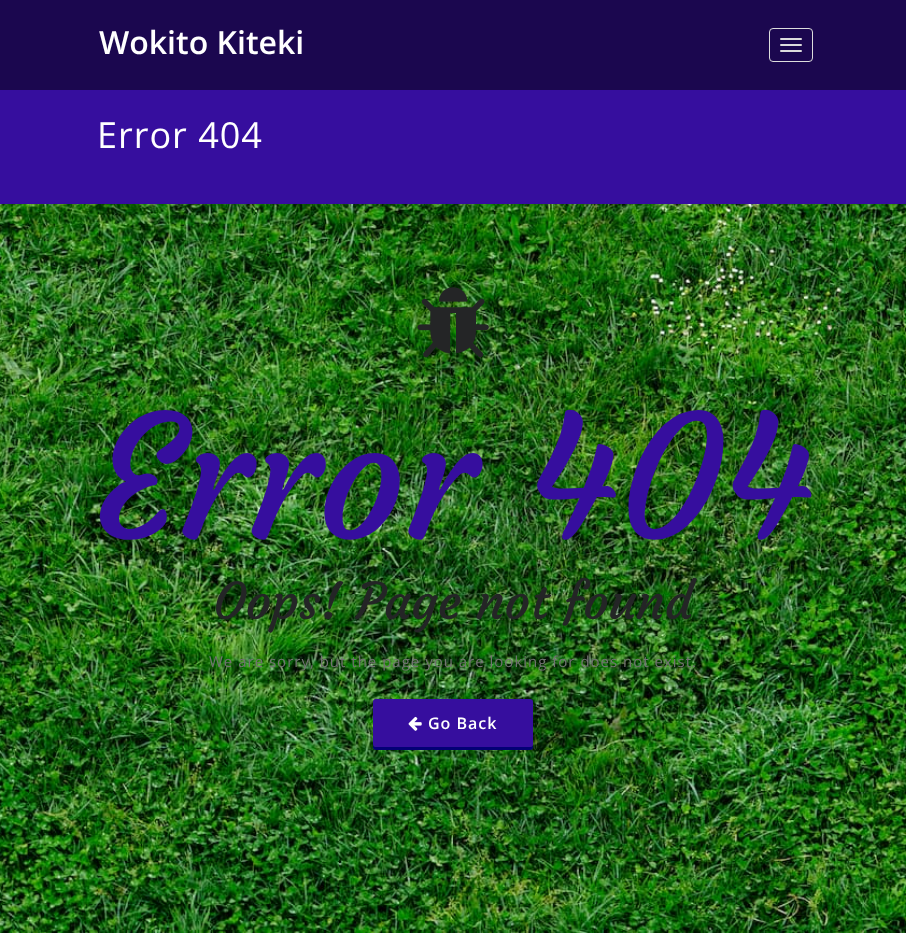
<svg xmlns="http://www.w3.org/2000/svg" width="906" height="933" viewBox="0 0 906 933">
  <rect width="100%" height="100%" fill="#fff"/>
  <path d="M0 0h906v90H0z" fill="#1b074f"/>
  <rect x="769.5" y="28.5" width="43" height="33" rx="3.5" fill="none" stroke="#ddd"/>
  <rect x="780" y="38" width="22" height="2" rx="1" fill="#ddd"/>
  <rect x="780" y="44" width="22" height="2" rx="1" fill="#ddd"/>
  <rect x="780" y="50" width="22" height="2" rx="1" fill="#ddd"/>
  <path d="M0 90h906v114H0z" fill="#360e9e"/>
  <image x="0" y="204" width="906" height="729" href="img/1.png"/>
  <image x="417" y="287" width="72" height="71" href="img/2.png"/>
  <path d="M373 744V747C373 749 374 750 376 750H530C532 750 533 749 533 747V744C533 746 532 747 530 747H376C374 747 373 746 373 744Z" fill="#040076"/>
  <rect x="373" y="699" width="160" height="48" rx="3" fill="#360e9e"/>
  <image x="408" y="716" width="14" height="15" href="img/3.png"/>
  <text x="99" y="54" font-family="Open Sans" font-size="32" font-weight="600" fill="#fff">Wokito Kiteki</text>
  <text x="97" y="148" font-family="Open Sans" font-size="36" letter-spacing="1" fill="#fff">Error 404</text>
  <text x="93" y="539" font-family="Courgette" font-size="170" fill="#360e9e">Error 404</text>
  <text x="213" y="619" font-family="Courgette" font-size="50" fill="#242526">Oops! Page not found</text>
  <text x="209" y="667" font-family="Open Sans" font-size="15" letter-spacing="1" fill="#727272">We are sorry, but the page you are looking for does not exist.</text>
  <text x="428" y="729" font-family="Open Sans" font-size="16" font-weight="600" letter-spacing="1" fill="#fff">Go Back</text>
</svg>
